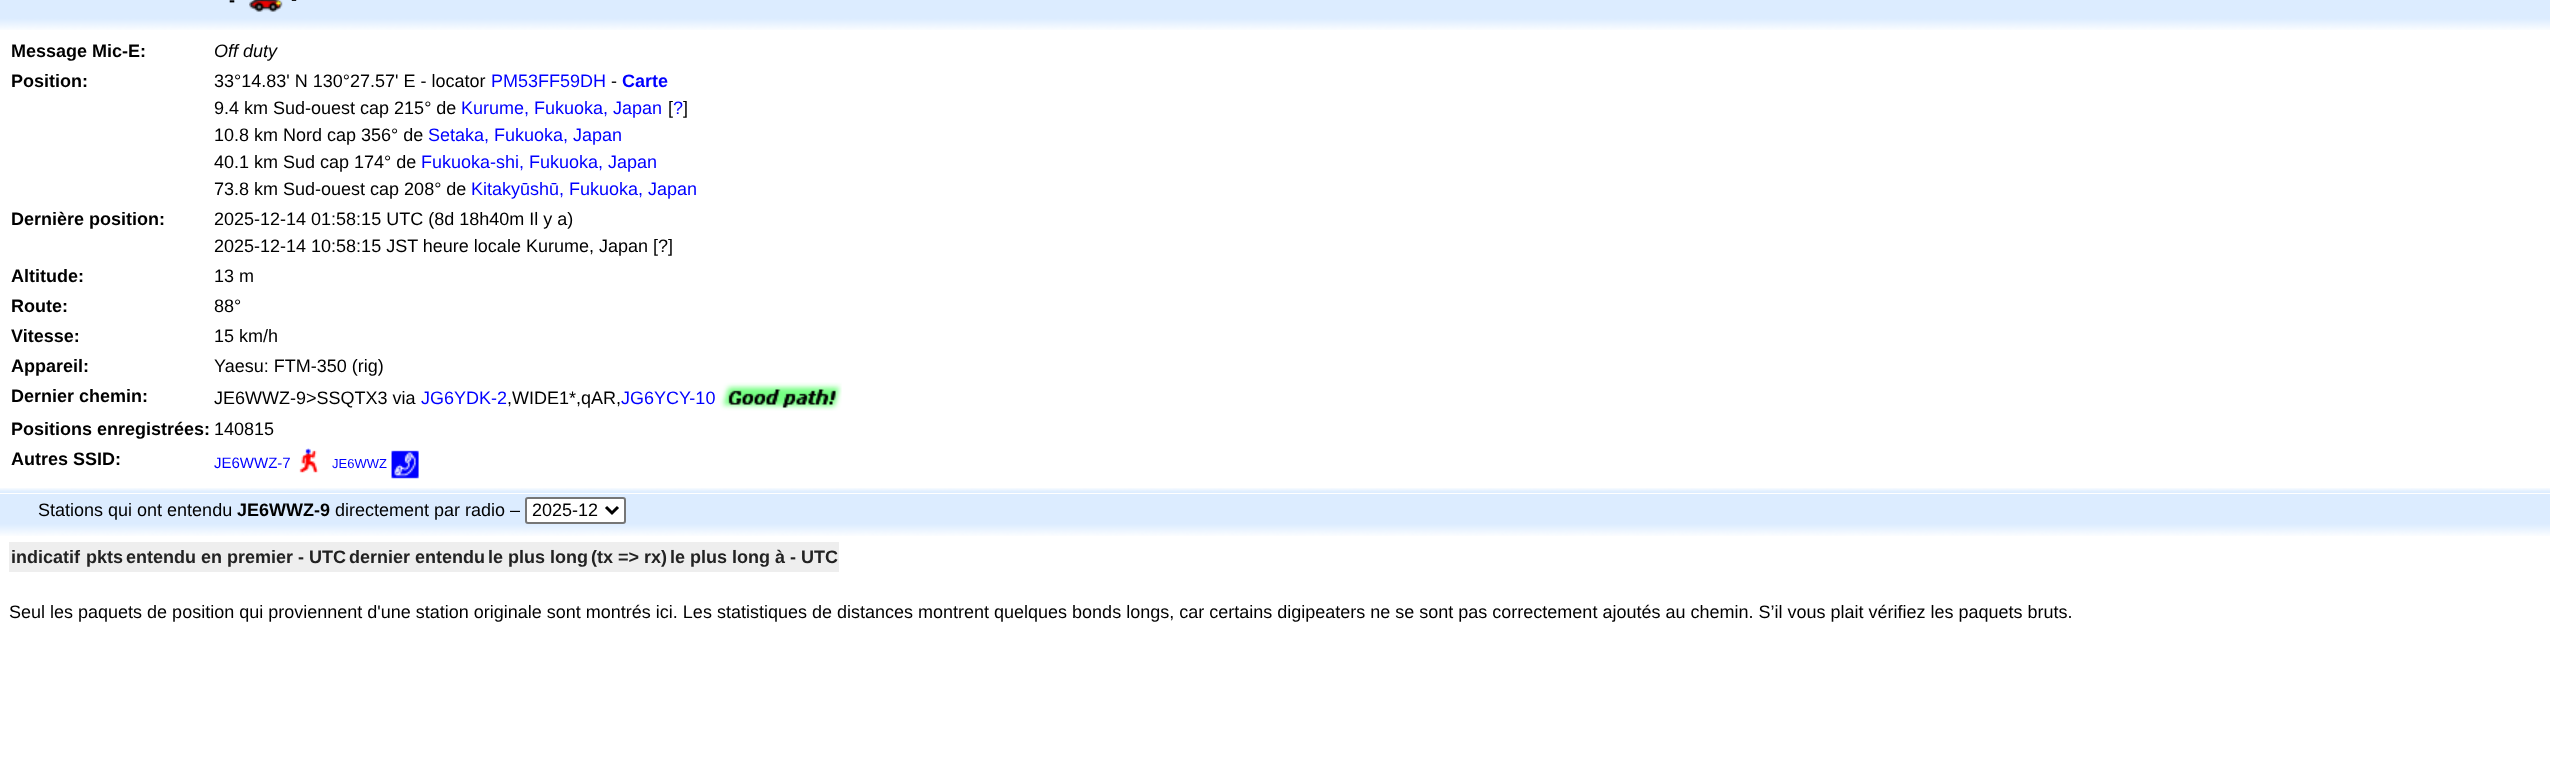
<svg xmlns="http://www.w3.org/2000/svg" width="2550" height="767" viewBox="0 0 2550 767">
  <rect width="100%" height="100%" fill="#fff"/>
  <path d="M0 0h2550v18H0z" fill="#dcecff"/>
  <image x="249" y="0" width="34" height="12" href="img/1.png"/>
  <image x="0" y="18" width="2550" height="12" href="img/2.png"/>
  <image x="720" y="382" width="122" height="29" href="img/3.png"/>
  <image x="299" y="448" width="20" height="25" href="img/4.png"/>
  <image x="391" y="450" width="28" height="29" href="img/5.png"/>
  <image x="0" y="488" width="2550" height="5" href="img/6.png"/>
  <path d="M0 494h2550v30H0z" fill="#dcecff"/>
  <rect x="526" y="498" width="99" height="25" rx="2" fill="#fff" stroke="#767676" stroke-width="2"/>
  <path d="M606 507L612 513L618 507" fill="none" stroke="#000" stroke-width="3"/>
  <image x="0" y="524" width="2550" height="12" href="img/7.png"/>
  <path d="M9 542h830v30H9z" fill="#eee"/>
  <text x="229" y="6" font-family="Liberation Sans" font-size="18" font-weight="bold" fill="#000">-</text>
  <text x="291" y="5" font-family="Liberation Sans" font-size="18" fill="#000">-</text>
  <text x="11" y="57" font-family="Liberation Sans" font-size="18" font-weight="bold" fill="#000">Message Mic-E:</text>
  <text x="214" y="57" font-family="Liberation Sans" font-size="18" font-style="italic" fill="#000">Off duty</text>
  <text x="11" y="87" font-family="Liberation Sans" font-size="18" font-weight="bold" fill="#000">Position:</text>
  <text x="214" y="87" font-family="Liberation Sans" font-size="18" fill="#000">33°14.83' N 130°27.57' E - locator</text>
  <text x="491" y="87" font-family="Liberation Sans" font-size="18" fill="#00f">PM53FF59DH</text>
  <text x="611" y="87" font-family="Liberation Sans" font-size="18" fill="#000">-</text>
  <text x="622" y="87" font-family="Liberation Sans" font-size="18" font-weight="bold" fill="#00f">Carte</text>
  <text x="214" y="114" font-family="Liberation Sans" font-size="18" fill="#000">9.4 km Sud-ouest cap 215° de</text>
  <text x="461" y="114" font-family="Liberation Sans" font-size="18" fill="#00f">Kurume, Fukuoka, Japan</text>
  <text x="668" y="114" font-family="Liberation Sans" font-size="18" fill="#000">[</text>
  <text x="673" y="114" font-family="Liberation Sans" font-size="18" fill="#00f">?</text>
  <g font-family="Liberation Sans" font-size="18" fill="#000">
    <text x="683" y="114">]</text>
    <text x="214" y="141">10.8 km Nord cap 356° de</text>
  </g>
  <text x="428" y="141" font-family="Liberation Sans" font-size="18" fill="#00f">Setaka, Fukuoka, Japan</text>
  <text x="214" y="168" font-family="Liberation Sans" font-size="18" fill="#000">40.1 km Sud cap 174° de</text>
  <text x="421" y="168" font-family="Liberation Sans" font-size="18" fill="#00f">Fukuoka-shi, Fukuoka, Japan</text>
  <text x="214" y="195" font-family="Liberation Sans" font-size="18" fill="#000">73.8 km Sud-ouest cap 208° de</text>
  <text x="471" y="195" font-family="Liberation Sans" font-size="18" fill="#00f">Kitakyūshū, Fukuoka, Japan</text>
  <text x="11" y="225" font-family="Liberation Sans" font-size="18" font-weight="bold" fill="#000">Dernière position:</text>
  <g font-family="Liberation Sans" font-size="18" fill="#000">
    <text x="214" y="225">2025-12-14 01:58:15 UTC (8d 18h40m Il y a)</text>
    <text x="214" y="252">2025-12-14 10:58:15 JST heure locale Kurume, Japan [?]</text>
  </g>
  <text x="11" y="282" font-family="Liberation Sans" font-size="18" font-weight="bold" fill="#000">Altitude:</text>
  <text x="214" y="282" font-family="Liberation Sans" font-size="18" fill="#000">13 m</text>
  <text x="11" y="312" font-family="Liberation Sans" font-size="18" font-weight="bold" fill="#000">Route:</text>
  <text x="214" y="312" font-family="Liberation Sans" font-size="18" fill="#000">88°</text>
  <text x="11" y="342" font-family="Liberation Sans" font-size="18" font-weight="bold" fill="#000">Vitesse:</text>
  <text x="214" y="342" font-family="Liberation Sans" font-size="18" fill="#000">15 km/h</text>
  <text x="11" y="372" font-family="Liberation Sans" font-size="18" font-weight="bold" fill="#000">Appareil:</text>
  <text x="214" y="372" font-family="Liberation Sans" font-size="18" fill="#000">Yaesu: FTM-350 (rig)</text>
  <text x="11" y="402" font-family="Liberation Sans" font-size="18" font-weight="bold" fill="#000">Dernier chemin:</text>
  <text x="214" y="404" font-family="Liberation Sans" font-size="18" fill="#000">JE6WWZ-9&gt;SSQTX3 via</text>
  <text x="421" y="404" font-family="Liberation Sans" font-size="18" fill="#00f">JG6YDK-2</text>
  <text x="507" y="404" font-family="Liberation Sans" font-size="18" fill="#000">,WIDE1*,qAR,</text>
  <text x="621" y="404" font-family="Liberation Sans" font-size="18" fill="#00f">JG6YCY-10</text>
  <text x="11" y="435" font-family="Liberation Sans" font-size="18" font-weight="bold" fill="#000">Positions enregistrées:</text>
  <text x="214" y="435" font-family="Liberation Sans" font-size="18" fill="#000">140815</text>
  <text x="11" y="465" font-family="Liberation Sans" font-size="18" font-weight="bold" fill="#000">Autres SSID:</text>
  <text x="214" y="468" font-family="Liberation Sans" font-size="15" fill="#00f">JE6WWZ-7</text>
  <text x="332" y="468" font-family="Liberation Sans" font-size="13" fill="#00f">JE6WWZ</text>
  <text x="38" y="516" font-family="Liberation Sans" font-size="18" fill="#000">Stations qui ont entendu</text>
  <text x="237" y="516" font-family="Liberation Sans" font-size="18" font-weight="bold" fill="#000">JE6WWZ-9</text>
  <g font-family="Liberation Sans" font-size="18" fill="#000">
    <text x="335" y="516">directement par radio –</text>
    <text x="532" y="516">2025-12</text>
  </g>
  <g font-family="Liberation Sans" font-size="18" font-weight="bold" fill="#222">
    <text x="11" y="563">indicatif</text>
    <text x="86" y="563">pkts</text>
    <text x="126" y="563">entendu en premier - UTC</text>
    <text x="349" y="563">dernier entendu</text>
    <text x="488" y="563">le plus long</text>
    <text x="591" y="563">(tx =&gt; rx)</text>
    <text x="670" y="563">le plus long à - UTC</text>
  </g>
  <text x="9" y="618" font-family="Liberation Sans" font-size="18" fill="#000">Seul les paquets de position qui proviennent d'une station originale sont montrés ici. Les statistiques de distances montrent quelques bonds longs, car certains digipeaters ne se sont pas correctement ajoutés au chemin. S’il vous plait vérifiez les paquets bruts.</text>
</svg>
